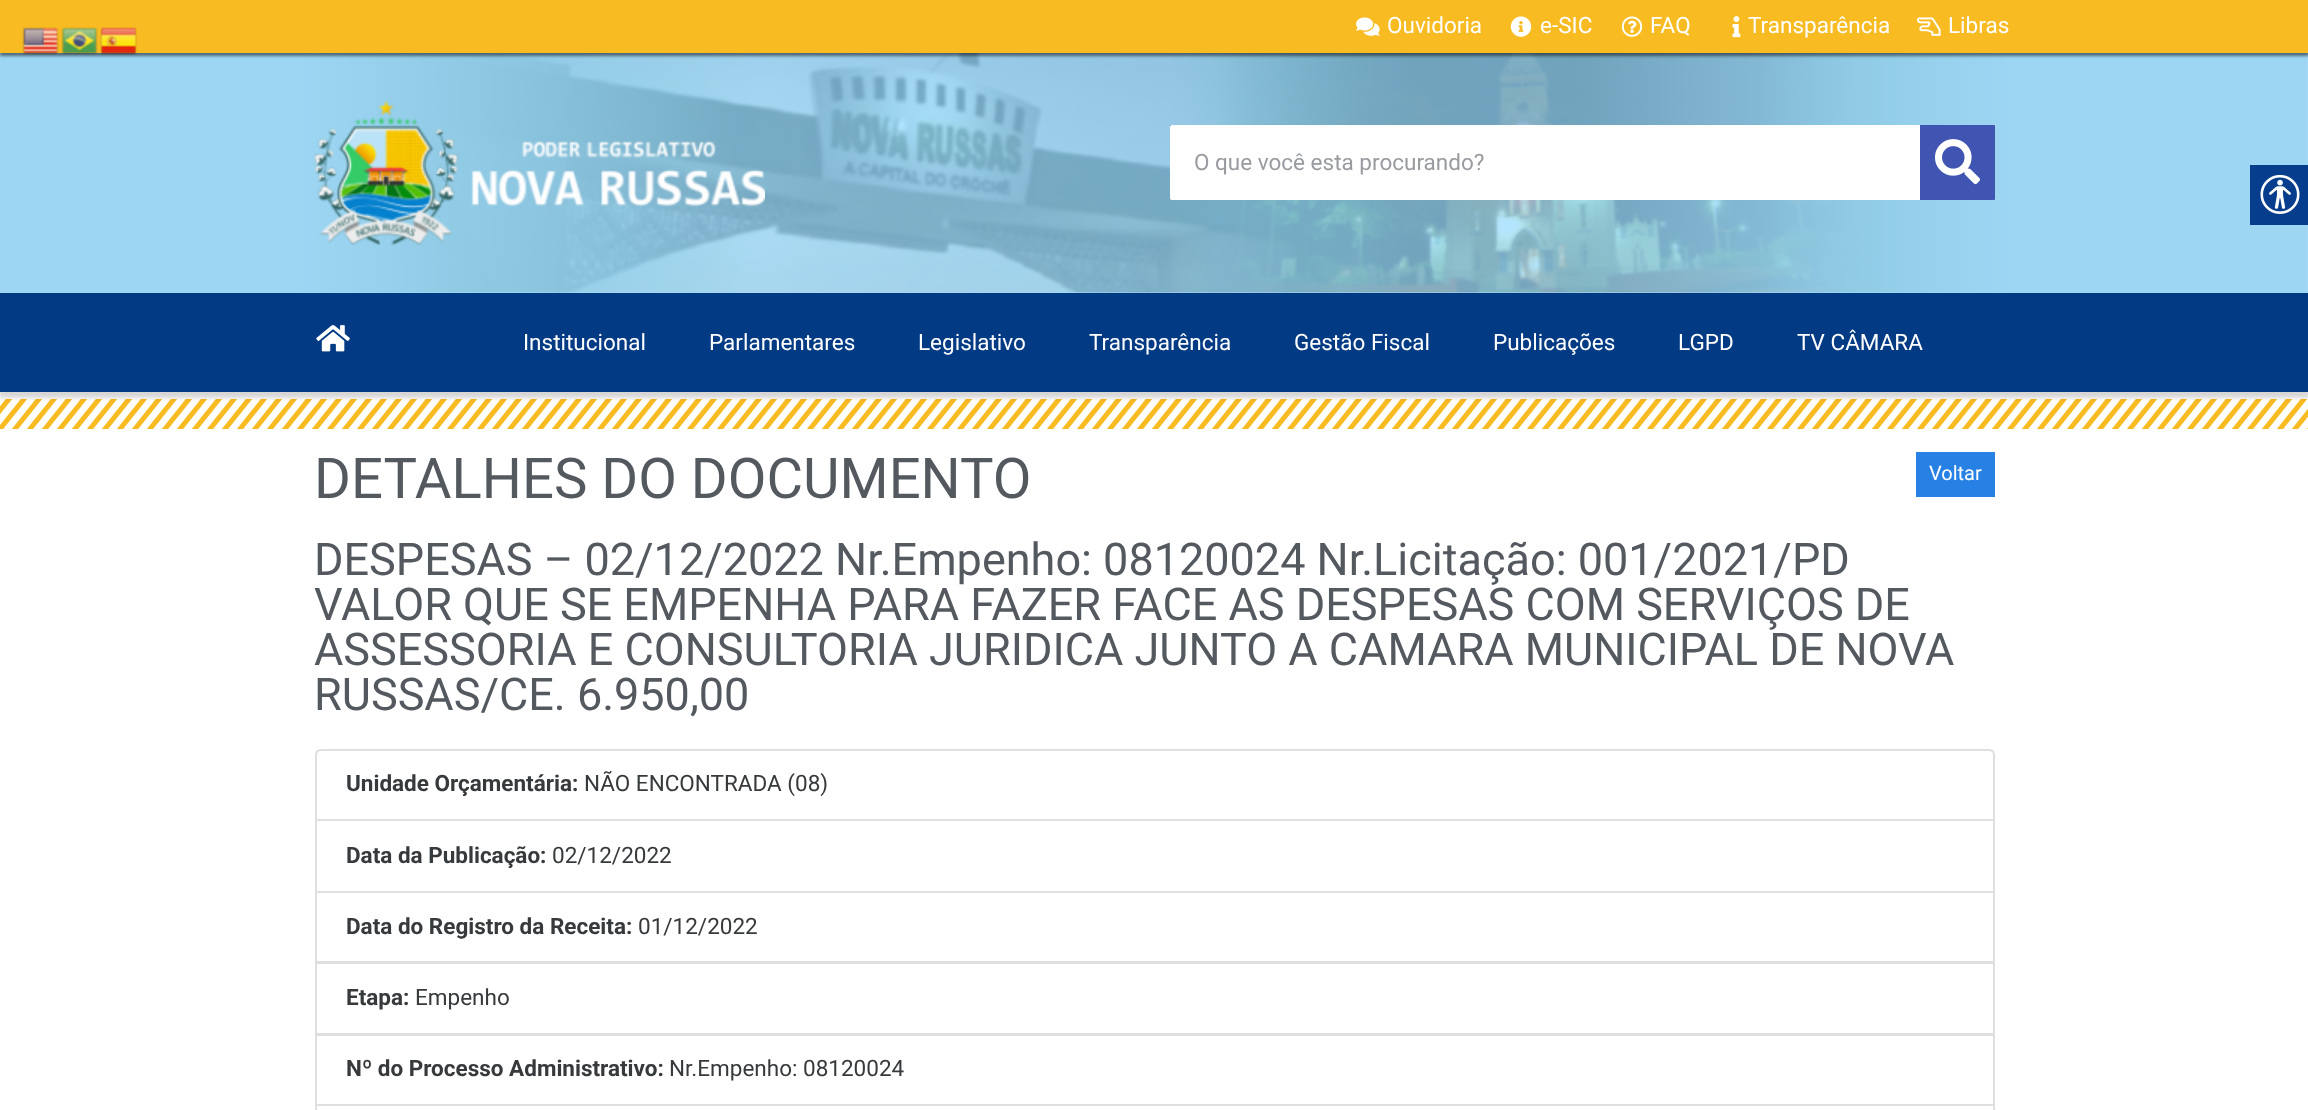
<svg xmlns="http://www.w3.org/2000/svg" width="2308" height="1110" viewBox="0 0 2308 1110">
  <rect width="100%" height="100%" fill="#fff"/>
  <path d="M0 53h2308v240H0z" fill="#aee0fb"/>
  <image x="0" y="53" width="2308" height="240" href="img/9.png"/>
  <path d="M0 3h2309v53H0z" fill="#00000080" filter="blur(1.5px)"/>
  <path d="M0 0h2308v53H0z" fill="#f8bb22"/>
  <image x="22" y="27" width="37" height="28" href="img/1.png"/>
  <image x="61" y="27" width="37" height="28" href="img/2.png"/>
  <image x="100" y="27" width="37" height="28" href="img/3.png"/>
  <image x="1356" y="17" width="24" height="19" href="img/4.png"/>
  <image x="1510" y="16" width="22" height="21" href="img/5.png"/>
  <image x="1621" y="16" width="22" height="21" href="img/6.png"/>
  <image x="1732" y="16" width="9" height="22" href="img/7.png"/>
  <image x="1917" y="17" width="24" height="19" href="img/8.png"/>
  <image x="315" y="100" width="450" height="145" href="img/10.png"/>
  <path d="M1170 125h825v75H1170z" fill="#2b5498"/>
  <rect x="1170" y="125" width="825" height="75" rx="1.5" fill="#fff"/>
  <path d="M1920 125H1993.5C1994.5 125 1995 125.5 1995 126.5V198.5C1995 199.5 1994.5 200 1993.5 200H1920Z" fill="#4054b2"/>
  <image x="1935" y="139" width="45" height="46" href="img/11.png"/>
  <image x="0" y="399" width="2308" height="30" href="img/13.png"/>
  <path d="M-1 296h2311v102H-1z" fill="#00000029" filter="blur(2px)"/>
  <path d="M0 293h2308v99H0z" fill="#023a84"/>
  <image x="316" y="325" width="34" height="27" href="img/12.png"/>
  <path d="M2250 165h58v60H2250z" fill="#063d8d"/>
  <image x="2260" y="174" width="40" height="40" href="img/14.png"/>
  <path d="M1916 452h79v45H1916z" fill="#2780e3"/>
  <path d="M321 750H1989C1992 750 1994 752 1994 755V820H316V755C316 752 318 750 321 750Z" fill="none" stroke="#dfdfdf" stroke-width="2"/>
  <path d="M316 820h1678v72H316z" fill="none" stroke="#dfdfdf" stroke-width="2"/>
  <path d="M316 892h1678v70H316z" fill="none" stroke="#dfdfdf" stroke-width="2"/>
  <path d="M316 963h1678v71H316z" fill="none" stroke="#dfdfdf" stroke-width="2"/>
  <path d="M316 1035h1678v70H316z" fill="none" stroke="#dfdfdf" stroke-width="2"/>
  <path d="M316 1105h1678v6H316z" fill="none" stroke="#dfdfdf" stroke-width="2"/>
  <g font-family="Roboto" font-size="22.5" fill="#fff">
    <text x="1387" y="33">Ouvidoria</text>
    <text x="1540" y="33">e-SIC</text>
    <text x="1650" y="33">FAQ</text>
    <text x="1748" y="33">Transparência</text>
    <text x="1948" y="33">Libras</text>
  </g>
  <text x="1194" y="170" font-family="Roboto" font-size="22.5" fill="#989b9f">O que você esta procurando?</text>
  <g font-family="Roboto" font-size="22.5" fill="#fff">
    <text x="523" y="350">Institucional</text>
    <text x="709" y="350">Parlamentares</text>
    <text x="918" y="350">Legislativo</text>
    <text x="1089" y="350">Transparência</text>
    <text x="1294" y="350">Gestão Fiscal</text>
    <text x="1493" y="350">Publicações</text>
    <text x="1678" y="350">LGPD</text>
    <text x="1797" y="350">TV CÂMARA</text>
  </g>
  <text x="314" y="498" font-family="Roboto" font-size="56.25" fill="#54595f">DETALHES DO DOCUMENTO</text>
  <text x="1929" y="480" font-family="Roboto" font-size="20" fill="#fff">Voltar</text>
  <g font-family="Roboto" font-size="45" fill="#54595f">
    <text x="314" y="575">DESPESAS – 02/12/2022 Nr.Empenho: 08120024 Nr.Licitação: 001/2021/PD</text>
    <text x="314" y="620">VALOR QUE SE EMPENHA PARA FAZER FACE AS DESPESAS COM SERVIÇOS DE</text>
    <text x="314" y="665">ASSESSORIA E CONSULTORIA JURIDICA JUNTO A CAMARA MUNICIPAL DE NOVA</text>
    <text x="314" y="710">RUSSAS/CE. 6.950,00</text>
  </g>
  <text x="346" y="791" font-family="Roboto" font-size="22.5" font-weight="bold" fill="#373a3c">Unidade Orçamentária:</text>
  <text x="584" y="791" font-family="Roboto" font-size="22.5" fill="#373a3c">NÃO ENCONTRADA (08)</text>
  <text x="346" y="863" font-family="Roboto" font-size="22.5" font-weight="bold" fill="#373a3c">Data da Publicação:</text>
  <text x="552" y="863" font-family="Roboto" font-size="22.5" fill="#373a3c">02/12/2022</text>
  <text x="346" y="934" font-family="Roboto" font-size="22.5" font-weight="bold" fill="#373a3c">Data do Registro da Receita:</text>
  <text x="638" y="934" font-family="Roboto" font-size="22.5" fill="#373a3c">01/12/2022</text>
  <text x="346" y="1005" font-family="Roboto" font-size="22.5" font-weight="bold" fill="#373a3c">Etapa:</text>
  <text x="415" y="1005" font-family="Roboto" font-size="22.5" fill="#373a3c">Empenho</text>
  <text x="346" y="1076" font-family="Roboto" font-size="22.5" font-weight="bold" fill="#373a3c">Nº do Processo Administrativo:</text>
  <text x="669" y="1076" font-family="Roboto" font-size="22.5" fill="#373a3c">Nr.Empenho: 08120024</text>
</svg>
